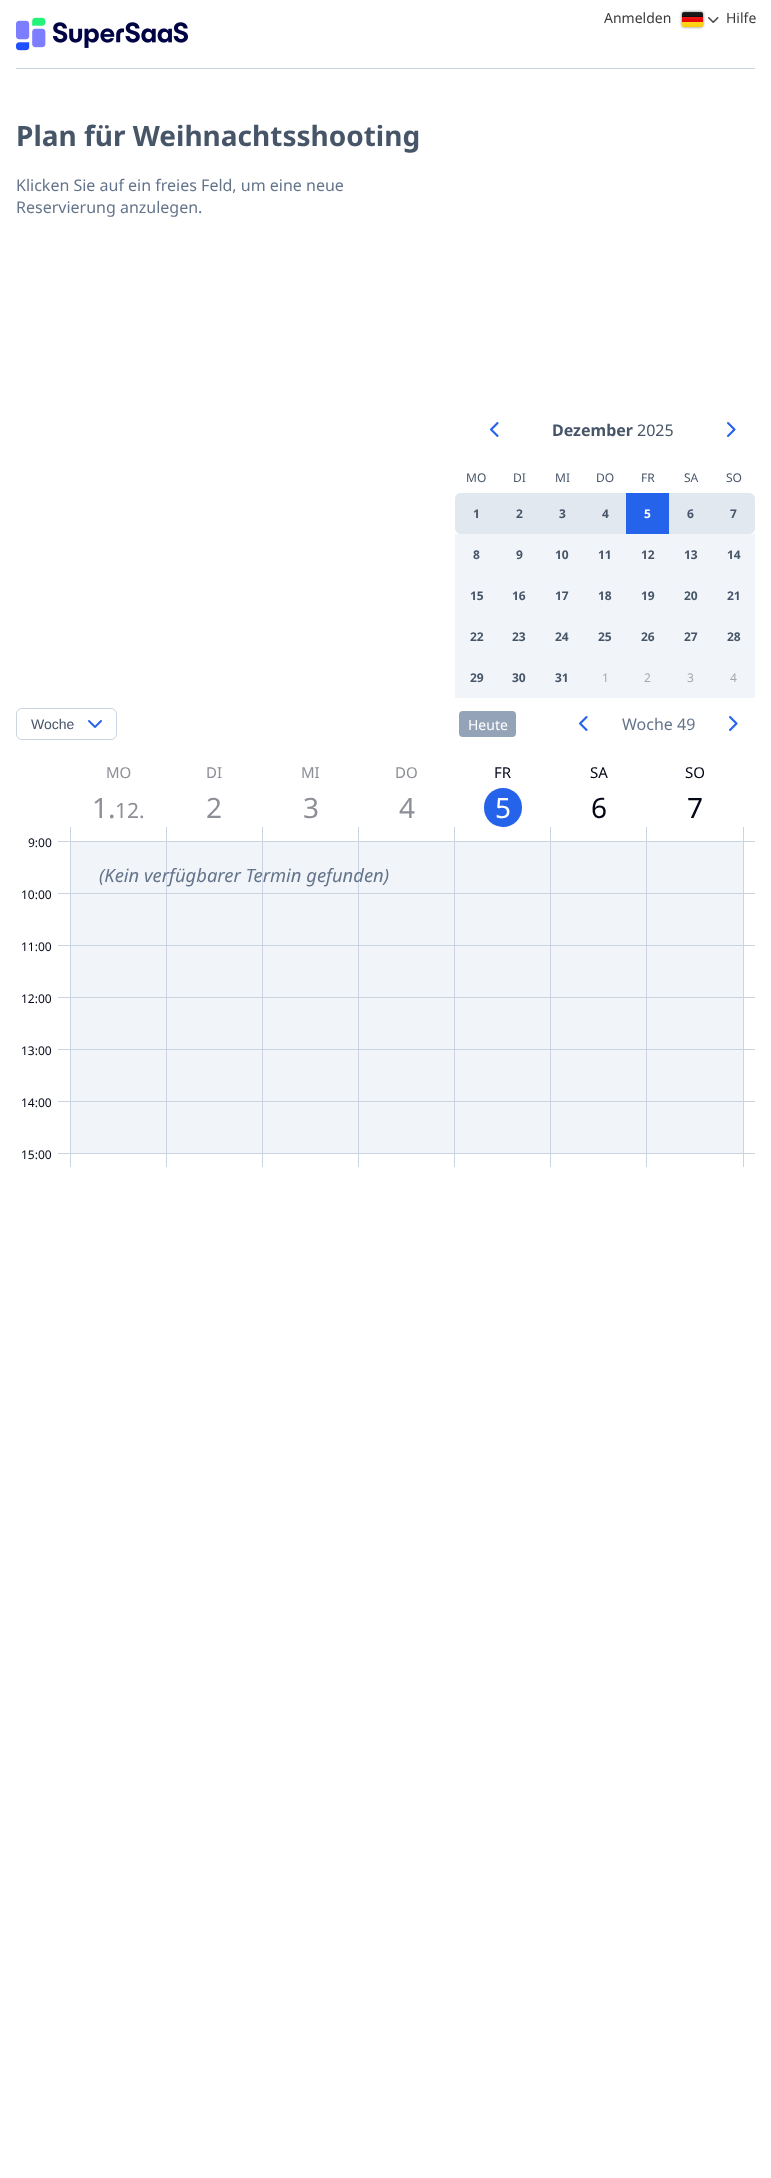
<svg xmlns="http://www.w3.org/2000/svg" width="771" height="2178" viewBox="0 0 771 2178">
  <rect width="100%" height="100%" fill="#fff"/>
  <rect x="682" y="12" width="21" height="15" rx="2" fill="#777" filter="blur(1.5px)"/>
  <image x="682" y="12" width="21" height="15" href="img/1.png"/>
  <image x="708" y="17" width="11" height="6" href="img/2.png"/>
  <path d="M16 68h739v1H16z" fill="#cbd5e1"/>
  <image x="16" y="17" width="172" height="34" href="img/3.png"/>
  <image x="490" y="422" width="9" height="15" href="img/4.png"/>
  <image x="727" y="422" width="9" height="15" href="img/5.png"/>
  <path d="M461 493H498V534H461C457.5 534 455 531.5 455 528V499C455 495.5 457.5 493 461 493Z" fill="#e2e8f0"/>
  <path d="M498 493h128v41H498z" fill="#e2e8f0"/>
  <path d="M626 493h43v41H626z" fill="#2563eb"/>
  <path d="M669 493h43v41H669z" fill="#e2e8f0"/>
  <path d="M712 493H749C752.5 493 755 495.5 755 499V528C755 531.5 752.5 534 749 534H712Z" fill="#e2e8f0"/>
  <path d="M455 534h300v41H455z" fill="#f1f5f9"/>
  <path d="M455 575h300v41H455z" fill="#f1f5f9"/>
  <path d="M455 616h300v41H455z" fill="#f1f5f9"/>
  <path d="M455 657h300v41H455z" fill="#f1f5f9"/>
  <rect x="16.5" y="708.5" width="100" height="31" rx="5.5" fill="none" stroke="#cbd5e1"/>
  <image x="88" y="720" width="14" height="8" href="img/6.png"/>
  <rect x="459" y="711" width="57" height="26" rx="4" fill="#94a3b8"/>
  <image x="579" y="716" width="9" height="15" href="img/4.png"/>
  <image x="729" y="716" width="9" height="15" href="img/5.png"/>
  <rect x="484" y="788" width="38" height="39" rx="19" fill="#2563eb"/>
  <path d="M58 841h12v1H58z" fill="#cbd5e1"/>
  <path d="M58 893h12v1H58z" fill="#cbd5e1"/>
  <path d="M58 945h12v1H58z" fill="#cbd5e1"/>
  <path d="M58 997h12v1H58z" fill="#cbd5e1"/>
  <path d="M58 1049h12v1H58z" fill="#cbd5e1"/>
  <path d="M58 1101h12v1H58z" fill="#cbd5e1"/>
  <path d="M58 1153h12v1H58z" fill="#cbd5e1"/>
  <path d="M71 842h95v311H71z" fill="#f1f5f9"/>
  <path d="M70 827h1v340H70z" fill="#cbd5e1"/>
  <path d="M166 827h1v340H166z" fill="#cbd5e1"/>
  <path d="M262 827h1v340H262z" fill="#cbd5e1"/>
  <path d="M358 827h1v340H358z" fill="#cbd5e1"/>
  <path d="M454 827h1v340H454z" fill="#cbd5e1"/>
  <path d="M550 827h1v340H550z" fill="#cbd5e1"/>
  <path d="M646 827h1v340H646z" fill="#cbd5e1"/>
  <path d="M70 841h673v1H70z" fill="#cbd5e1"/>
  <path d="M70 893h96v1H70z" fill="#cbd5e1"/>
  <path d="M70 945h96v1H70z" fill="#cbd5e1"/>
  <path d="M70 997h96v1H70z" fill="#cbd5e1"/>
  <path d="M70 1049h96v1H70z" fill="#cbd5e1"/>
  <path d="M70 1101h96v1H70z" fill="#cbd5e1"/>
  <path d="M70 1153h673v1H70z" fill="#cbd5e1"/>
  <path d="M744 841h11v1H744z" fill="#cbd5e1"/>
  <path d="M744 893h11v1H744z" fill="#cbd5e1"/>
  <path d="M744 945h11v1H744z" fill="#cbd5e1"/>
  <path d="M744 997h11v1H744z" fill="#cbd5e1"/>
  <path d="M744 1049h11v1H744z" fill="#cbd5e1"/>
  <path d="M744 1101h11v1H744z" fill="#cbd5e1"/>
  <path d="M744 1153h11v1H744z" fill="#cbd5e1"/>
  <path d="M167 842h95v311H167z" fill="#f1f5f9"/>
  <path d="M166 893h97v1H166z" fill="#cbd5e1"/>
  <path d="M166 945h97v1H166z" fill="#cbd5e1"/>
  <path d="M166 997h97v1H166z" fill="#cbd5e1"/>
  <path d="M166 1049h97v1H166z" fill="#cbd5e1"/>
  <path d="M166 1101h97v1H166z" fill="#cbd5e1"/>
  <path d="M263 842h95v311H263z" fill="#f1f5f9"/>
  <path d="M263 893h96v1H263z" fill="#cbd5e1"/>
  <path d="M263 945h96v1H263z" fill="#cbd5e1"/>
  <path d="M263 997h96v1H263z" fill="#cbd5e1"/>
  <path d="M263 1049h96v1H263z" fill="#cbd5e1"/>
  <path d="M263 1101h96v1H263z" fill="#cbd5e1"/>
  <path d="M359 842h95v311H359z" fill="#f1f5f9"/>
  <path d="M359 893h96v1H359z" fill="#cbd5e1"/>
  <path d="M359 945h96v1H359z" fill="#cbd5e1"/>
  <path d="M359 997h96v1H359z" fill="#cbd5e1"/>
  <path d="M359 1049h96v1H359z" fill="#cbd5e1"/>
  <path d="M359 1101h96v1H359z" fill="#cbd5e1"/>
  <path d="M455 842h95v311H455z" fill="#f1f5f9"/>
  <path d="M455 893h96v1H455z" fill="#cbd5e1"/>
  <path d="M455 945h96v1H455z" fill="#cbd5e1"/>
  <path d="M455 997h96v1H455z" fill="#cbd5e1"/>
  <path d="M455 1049h96v1H455z" fill="#cbd5e1"/>
  <path d="M455 1101h96v1H455z" fill="#cbd5e1"/>
  <path d="M551 842h95v311H551z" fill="#f1f5f9"/>
  <path d="M551 893h96v1H551z" fill="#cbd5e1"/>
  <path d="M551 945h96v1H551z" fill="#cbd5e1"/>
  <path d="M551 997h96v1H551z" fill="#cbd5e1"/>
  <path d="M551 1049h96v1H551z" fill="#cbd5e1"/>
  <path d="M551 1101h96v1H551z" fill="#cbd5e1"/>
  <path d="M647 842h96v311H647z" fill="#f1f5f9"/>
  <path d="M647 893h96v1H647z" fill="#cbd5e1"/>
  <path d="M647 945h96v1H647z" fill="#cbd5e1"/>
  <path d="M647 997h96v1H647z" fill="#cbd5e1"/>
  <path d="M647 1049h96v1H647z" fill="#cbd5e1"/>
  <path d="M647 1101h96v1H647z" fill="#cbd5e1"/>
  <path d="M743 827h1v340H743z" fill="#cbd5e1"/>
  <g font-family="Noto Sans" font-size="14" fill="#3c3c3d">
    <text x="604" y="23">Anmelden</text>
    <text x="726" y="23">Hilfe</text>
  </g>
  <text x="16" y="146" font-family="Noto Sans" font-size="28" font-weight="bold" fill="#475569">Plan für Weihnachtsshooting</text>
  <g font-family="Noto Sans" font-size="16" fill="#64748b">
    <text x="16" y="191">Klicken Sie auf ein freies Feld, um eine neue</text>
    <text x="16" y="213">Reservierung anzulegen.</text>
  </g>
  <text x="552" y="436" font-family="Noto Sans" font-size="16" font-weight="bold" fill="#475569">Dezember</text>
  <text x="637" y="436" font-family="Noto Sans" font-size="16" fill="#475569">2025</text>
  <g font-family="Noto Sans" font-size="12" fill="#475569">
    <text x="466" y="482">MO</text>
    <text x="513" y="482">DI</text>
    <text x="555" y="482">MI</text>
    <text x="596" y="482">DO</text>
    <text x="641" y="482">FR</text>
    <text x="684" y="482">SA</text>
    <text x="726" y="482">SO</text>
  </g>
  <g font-family="Noto Sans" font-size="12" font-weight="bold" fill="#475569">
    <text x="473" y="518">1</text>
    <text x="516" y="518">2</text>
    <text x="559" y="518">3</text>
    <text x="602" y="518">4</text>
  </g>
  <text x="644" y="518" font-family="Noto Sans" font-size="12" font-weight="bold" fill="#fff">5</text>
  <g font-family="Noto Sans" font-size="12" font-weight="bold" fill="#475569">
    <text x="687" y="518">6</text>
    <text x="730" y="518">7</text>
    <text x="473" y="559">8</text>
    <text x="516" y="559">9</text>
    <text x="555" y="559">10</text>
    <text x="598" y="559">11</text>
    <text x="641" y="559">12</text>
    <text x="684" y="559">13</text>
    <text x="727" y="559">14</text>
    <text x="470" y="600">15</text>
    <text x="512" y="600">16</text>
    <text x="555" y="600">17</text>
    <text x="598" y="600">18</text>
    <text x="641" y="600">19</text>
    <text x="684" y="600">20</text>
    <text x="727" y="600">21</text>
    <text x="470" y="641">22</text>
    <text x="512" y="641">23</text>
    <text x="555" y="641">24</text>
    <text x="598" y="641">25</text>
    <text x="641" y="641">26</text>
    <text x="684" y="641">27</text>
    <text x="727" y="641">28</text>
    <text x="470" y="682">29</text>
    <text x="512" y="682">30</text>
    <text x="555" y="682">31</text>
  </g>
  <g font-family="Noto Sans" font-size="12" fill="#a6a8ae">
    <text x="602" y="682">1</text>
    <text x="644" y="682">2</text>
    <text x="687" y="682">3</text>
    <text x="730" y="682">4</text>
  </g>
  <text x="31" y="729" font-family="Liberation Sans" font-size="14" fill="#475569">Woche</text>
  <text x="468" y="730" font-family="Noto Sans" font-size="14" fill="#fff">Heute</text>
  <text x="622" y="730" font-family="Noto Sans" font-size="16" fill="#64748b">Woche 49</text>
  <text x="106" y="778" font-family="Noto Sans" font-size="15" fill="#8d8f97">MO</text>
  <text x="92" y="818" font-family="Noto Sans" font-size="28" fill="#8d8f97">1.</text>
  <text x="115" y="818" font-family="Noto Sans" font-size="21" fill="#8d8f97">12.</text>
  <text x="206" y="778" font-family="Noto Sans" font-size="15" fill="#8d8f97">DI</text>
  <text x="206" y="818" font-family="Noto Sans" font-size="28" fill="#8d8f97">2</text>
  <text x="301" y="778" font-family="Noto Sans" font-size="15" fill="#8d8f97">MI</text>
  <text x="303" y="818" font-family="Noto Sans" font-size="28" fill="#8d8f97">3</text>
  <text x="395" y="778" font-family="Noto Sans" font-size="15" fill="#8d8f97">DO</text>
  <text x="399" y="818" font-family="Noto Sans" font-size="28" fill="#8d8f97">4</text>
  <text x="494" y="778" font-family="Noto Sans" font-size="15" fill="#020617">FR</text>
  <text x="495" y="818" font-family="Noto Sans" font-size="28" fill="#fff">5</text>
  <text x="590" y="778" font-family="Noto Sans" font-size="15" fill="#020617">SA</text>
  <text x="591" y="818" font-family="Noto Sans" font-size="28" fill="#020617">6</text>
  <text x="685" y="778" font-family="Noto Sans" font-size="15" fill="#020617">SO</text>
  <text x="687" y="818" font-family="Noto Sans" font-size="28" fill="#020617">7</text>
  <g font-family="Noto Sans" font-size="12" fill="#020617">
    <text x="28" y="847">9:00</text>
    <text x="21" y="899">10:00</text>
    <text x="21" y="951">11:00</text>
    <text x="21" y="1003">12:00</text>
    <text x="21" y="1055">13:00</text>
    <text x="21" y="1107">14:00</text>
    <text x="21" y="1159">15:00</text>
  </g>
  <text x="99" y="882" font-family="Noto Sans" font-size="18.4" font-style="italic" fill="#64748b">(Kein verfügbarer Termin gefunden)</text>
</svg>
